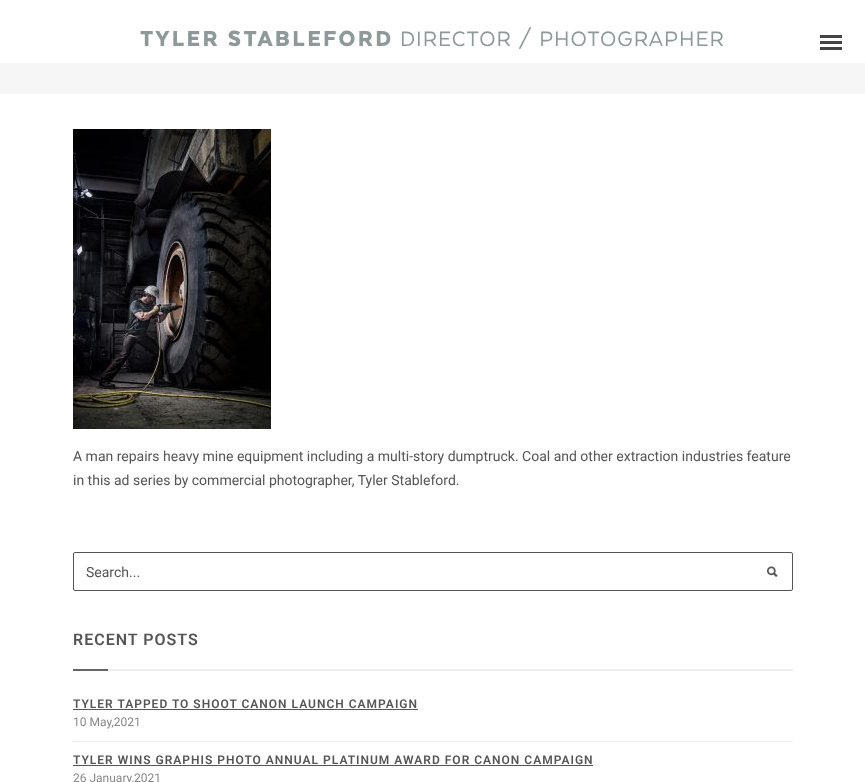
<svg xmlns="http://www.w3.org/2000/svg" width="865" height="782" viewBox="0 0 865 782">
  <rect width="100%" height="100%" fill="#fff"/>
  <path d="M0 63h865v1H0z" fill="#f5f5f5"/>
  <path d="M820 35h22v3H820z" fill="#444"/>
  <path d="M820 41h22v3H820z" fill="#444"/>
  <path d="M820 47h22v3H820z" fill="#444"/>
  <path d="M0 64h865v30H0z" fill="#f6f6f6"/>
  <image x="73" y="129" width="198" height="300" href="img/1.png"/>
  <rect x="73.5" y="552.5" width="719" height="38" rx="1.5" fill="none" stroke="#555"/>
  <image x="767" y="566" width="11" height="11" href="img/2.png"/>
  <path d="M73 669h35v2H73z" fill="#666"/>
  <path d="M108 669h685v2H108z" fill="#eee"/>
  <path d="M73 709h345v1H73z" fill="#555"/>
  <path d="M73 741h720v1H73z" fill="#eee"/>
  <path d="M73 765h520v1H73z" fill="#555"/>
  <text x="140" y="46" font-family="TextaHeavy" font-size="24" font-weight="bold" letter-spacing="3" fill="#8e9a9a">TYLER STABLEFORD</text>
  <text x="400" y="46" font-family="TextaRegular" font-size="24" letter-spacing="1" fill="#8e9a9a">DIRECTOR / PHOTOGRAPHER</text>
  <g font-family="Roboto" font-size="14" fill="#555">
    <text x="73" y="461">A man repairs heavy mine equipment including a multi-story dumptruck. Coal and other extraction industries feature</text>
    <text x="73" y="485">in this ad series by commercial photographer, Tyler Stableford.</text>
    <text x="86" y="577">Search...</text>
  </g>
  <text x="73" y="645" font-family="Roboto" font-size="16" font-weight="600" letter-spacing="1" fill="#555">RECENT POSTS</text>
  <text x="73" y="708" font-family="Roboto" font-size="12" font-weight="600" letter-spacing="1" fill="#555">TYLER TAPPED TO SHOOT CANON LAUNCH CAMPAIGN</text>
  <text x="73" y="726" font-family="Roboto" font-size="12" fill="#888">10 May,2021</text>
  <text x="73" y="764" font-family="Roboto" font-size="12" font-weight="600" letter-spacing="1" fill="#555">TYLER WINS GRAPHIS PHOTO ANNUAL PLATINUM AWARD FOR CANON CAMPAIGN</text>
  <text x="73" y="782" font-family="Roboto" font-size="12" fill="#888">26 January,2021</text>
</svg>
